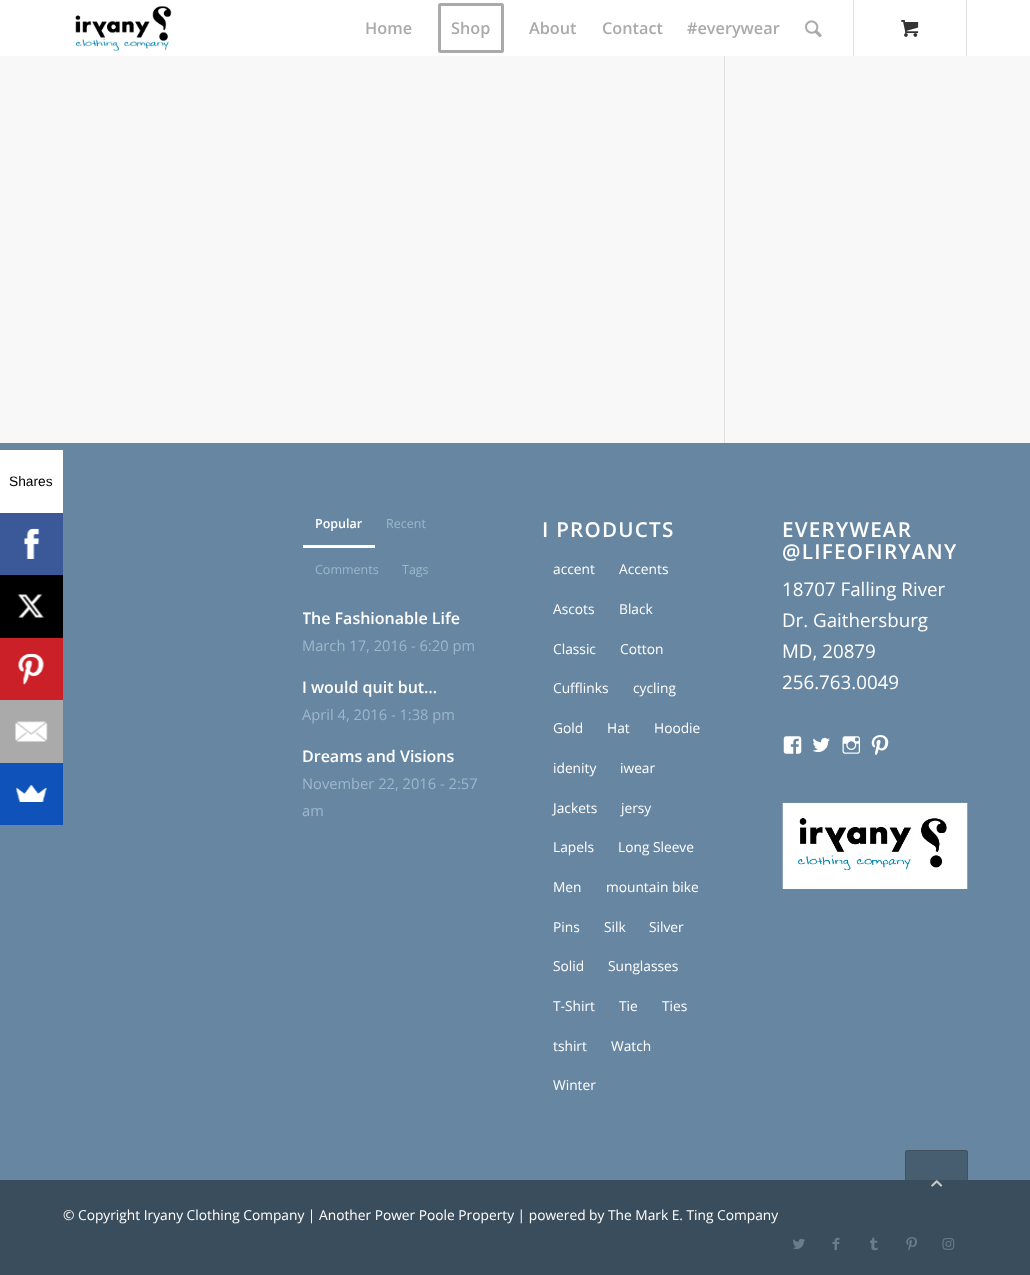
<svg xmlns="http://www.w3.org/2000/svg" width="1030" height="1275" viewBox="0 0 1030 1275">
  <defs>
    <clipPath id="clip1"><rect x="303" y="594" width="185" height="235" rx="2.5"/></clipPath>
  </defs>
  <rect width="100%" height="100%" fill="#f8f8f8"/>
  <path d="M0 443h1030v737H0z" fill="#6786a1"/>
  <path d="M0 450h63v63H0z" fill="#fff"/>
  <path d="M0 513h63v62H0z" fill="#3b5998"/>
  <image x="24" y="528" width="16" height="31" href="img/1.png"/>
  <path d="M0 575h63v63H0z" fill="#000"/>
  <image x="17" y="594" width="27" height="24" href="img/2.png"/>
  <path d="M0 638h63v62H0z" fill="#cb2027"/>
  <image x="18" y="653" width="26" height="32" href="img/3.png"/>
  <path d="M0 700h63v63H0z" fill="#aaa"/>
  <image x="15" y="721" width="33" height="21" href="img/4.png"/>
  <path d="M0 763h63v62H0z" fill="#0f52ba"/>
  <image x="15" y="785" width="32" height="17" href="img/5.png"/>
  <path d="M0 0h1030v56H0z" fill="#fff"/>
  <image x="75" y="5" width="97" height="47" href="img/6.png"/>
  <rect x="439.5" y="4.5" width="63" height="47" rx="1" fill="none" stroke="#aaa" stroke-width="3"/>
  <image x="805" y="20" width="17" height="18" href="img/7.png"/>
  <path d="M966 0h1v56H966z" fill="#e1e1e1"/>
  <path d="M853 0h1v56H853z" fill="#e1e1e1"/>
  <image x="901" y="20" width="18" height="17" href="img/8.png"/>
  <path d="M724 56h1v387H724z" fill="#e1e1e1"/>
  <path d="M303 545h72v3H303z" fill="#fff"/>
  <image x="783" y="736" width="19" height="18" href="img/9.png"/>
  <image x="812" y="737" width="18" height="16" href="img/10.png"/>
  <image x="842" y="736" width="18" height="18" href="img/11.png"/>
  <image x="871" y="735" width="18" height="20" href="img/12.png"/>
  <image x="782" y="802" width="186" height="87" href="img/13.png"/>
  <path d="M0 1180h1030v95H0z" fill="#3a4d5c"/>
  <image x="793" y="1238" width="12" height="11" href="img/14.png"/>
  <image x="832" y="1237" width="8" height="14" href="img/15.png"/>
  <image x="870" y="1237" width="8" height="14" href="img/16.png"/>
  <image x="906" y="1237" width="11" height="14" href="img/17.png"/>
  <image x="942" y="1238" width="13" height="12" href="img/18.png"/>
  <rect x="905" y="1150" width="63" height="63" rx="2.5" fill="#3a4d5cb3"/>
  <rect x="905.5" y="1150.5" width="62" height="62" rx="2" fill="none" stroke="#3a4d5cb3"/>
  <image x="931" y="1180" width="12" height="7" href="img/19.png"/>
  <text x="9" y="486" font-family="Liberation Sans" font-size="13.75" fill="#000">Shares</text>
  <g font-family="Open Sans" font-size="16.25" font-weight="600" fill="#aaa">
    <text x="365" y="34">Home</text>
    <text x="451" y="34">Shop</text>
    <text x="529" y="34">About</text>
    <text x="602" y="34">Contact</text>
    <text x="687" y="34">#everywear</text>
  </g>
  <text x="315" y="528" font-family="Open Sans" font-size="12.5" font-weight="600" fill="#fff">Popular</text>
  <g font-family="Open Sans" font-size="12.5" fill="#9db8cc">
    <text x="386" y="528">Recent</text>
    <text x="315" y="574">Comments</text>
    <text x="402" y="574">Tags</text>
  </g>
  <g clip-path="url(#clip1)">
    <text x="302" y="624" font-family="Open Sans" font-size="16" font-weight="600" fill="#fff">The Fashionable Life</text>
  </g>
  <text x="302" y="651" font-family="Open Sans" font-size="14.7" fill="#9db8cc">March 17, 2016 - 6:20 pm</text>
  <text x="302" y="693" font-family="Open Sans" font-size="16" font-weight="600" fill="#fff">I would quit but…</text>
  <text x="302" y="720" font-family="Open Sans" font-size="14.7" fill="#9db8cc">April 4, 2016 - 1:38 pm</text>
  <text x="302" y="762" font-family="Open Sans" font-size="16" font-weight="600" fill="#fff">Dreams and Visions</text>
  <g font-family="Open Sans" font-size="14.7" fill="#9db8cc">
    <text x="302" y="789">November 22, 2016 - 2:57</text>
    <text x="302" y="816">am</text>
  </g>
  <text x="542" y="537" font-family="Open Sans" font-size="20.6" font-weight="600" letter-spacing="1.25" fill="#fff">I PRODUCTS</text>
  <g font-family="Open Sans" font-size="13.75" fill="#fff">
    <text x="553" y="574">accent</text>
    <text x="619" y="574">Accents</text>
    <text x="553" y="614">Ascots</text>
    <text x="619" y="614">Black</text>
    <text x="553" y="654">Classic</text>
    <text x="620" y="654">Cotton</text>
    <text x="553" y="693">Cufflinks</text>
    <text x="633" y="693">cycling</text>
    <text x="553" y="733">Gold</text>
    <text x="607" y="733">Hat</text>
    <text x="654" y="733">Hoodie</text>
    <text x="553" y="773">idenity</text>
    <text x="620" y="773">iwear</text>
    <text x="553" y="813">Jackets</text>
    <text x="621" y="813">jersy</text>
    <text x="553" y="852">Lapels</text>
    <text x="618" y="852">Long Sleeve</text>
    <text x="553" y="892">Men</text>
    <text x="606" y="892">mountain bike</text>
    <text x="553" y="932">Pins</text>
    <text x="604" y="932">Silk</text>
    <text x="649" y="932">Silver</text>
    <text x="553" y="971">Solid</text>
    <text x="608" y="971">Sunglasses</text>
    <text x="553" y="1011">T-Shirt</text>
    <text x="619" y="1011">Tie</text>
    <text x="662" y="1011">Ties</text>
    <text x="553" y="1051">tshirt</text>
    <text x="611" y="1051">Watch</text>
    <text x="553" y="1090">Winter</text>
  </g>
  <g font-family="Open Sans" font-size="20.6" font-weight="600" letter-spacing="1.25" fill="#fff">
    <text x="782" y="537">EVERYWEAR</text>
    <text x="782" y="559">@LIFEOFIRYANY</text>
  </g>
  <g font-family="Open Sans" font-size="18.75" fill="#fff">
    <text x="782" y="596">18707 Falling River</text>
    <text x="782" y="627">Dr. Gaithersburg</text>
    <text x="782" y="658">MD, 20879</text>
    <text x="782" y="689">256.763.0049</text>
  </g>
  <text x="63" y="1220" font-family="Open Sans" font-size="13.75" fill="#fff">© Copyright Iryany Clothing Company | Another Power Poole Property | powered by The Mark E. Ting Company</text>
</svg>
